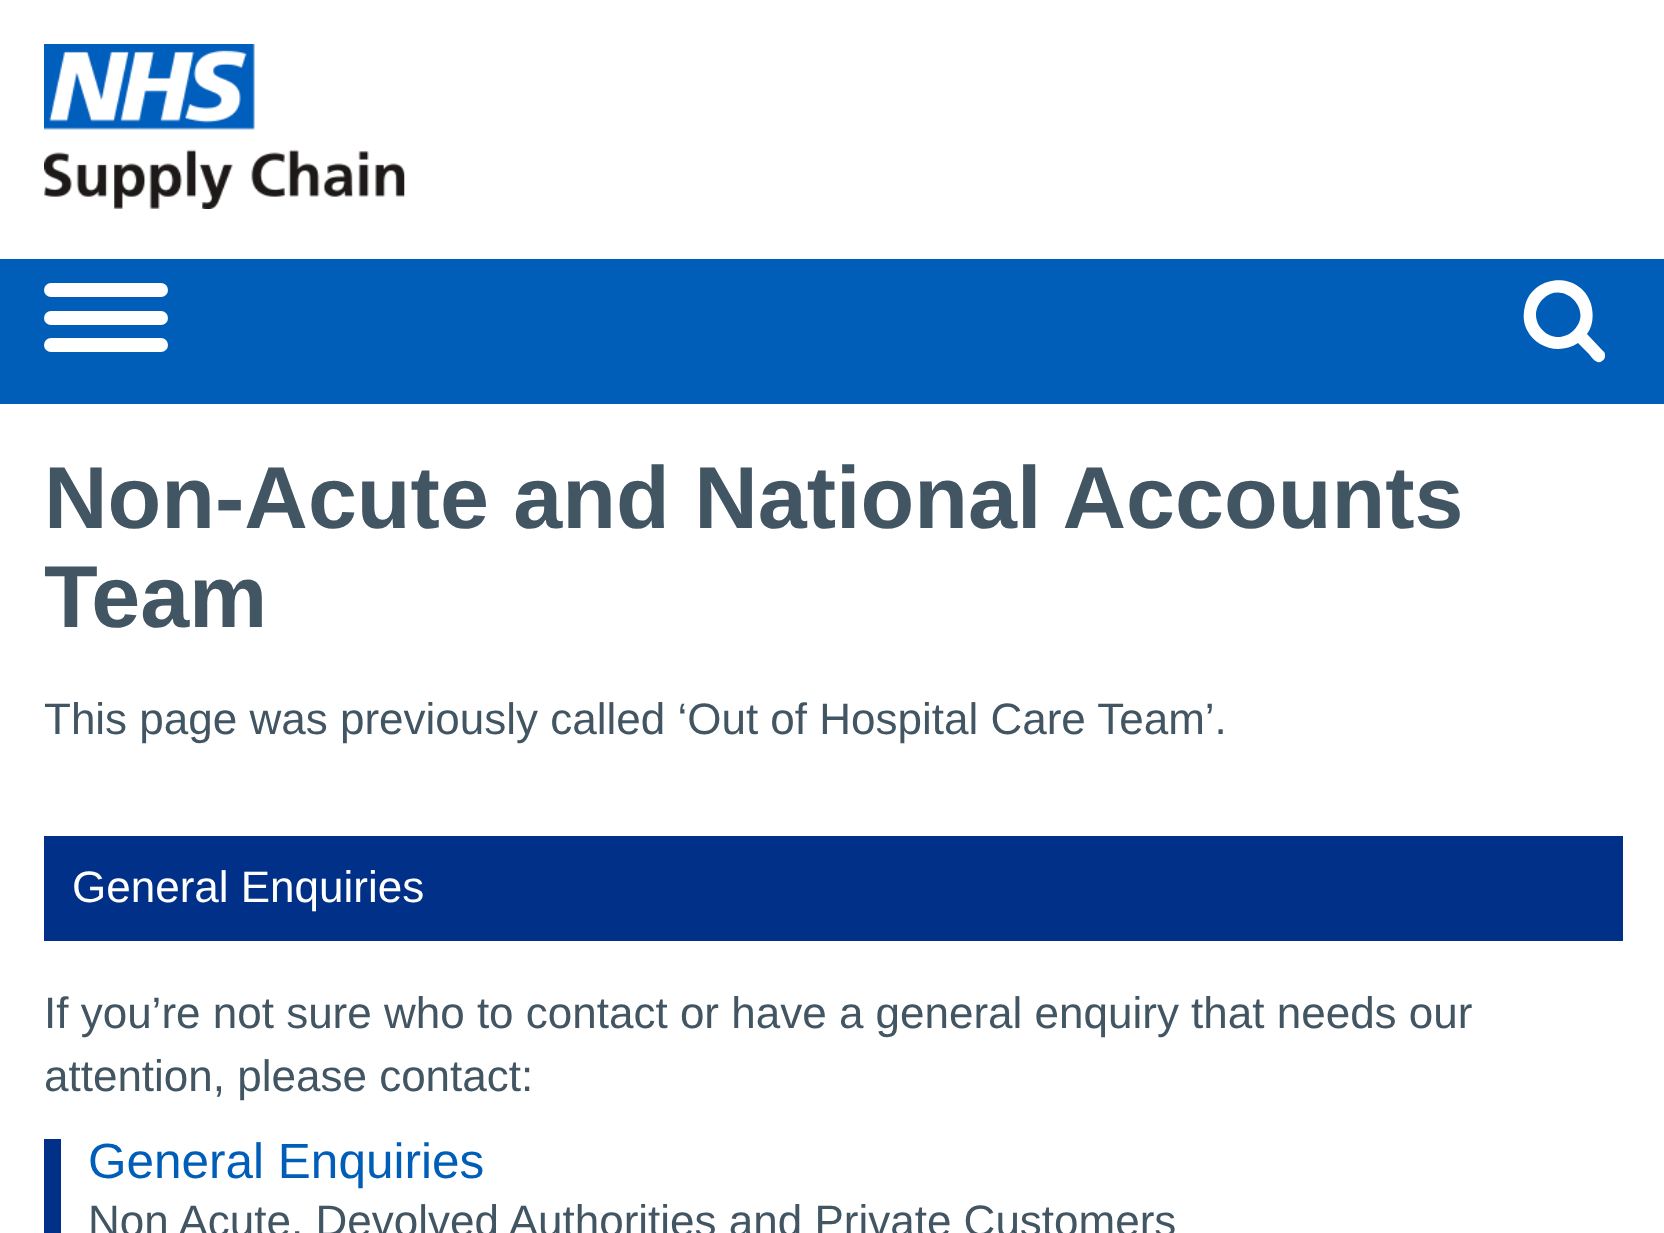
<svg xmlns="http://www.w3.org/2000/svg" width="1664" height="1233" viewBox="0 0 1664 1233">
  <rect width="100%" height="100%" fill="#fff"/>
  <image x="44" y="44" width="361" height="165" href="img/1.png"/>
  <path d="M0 259h1664v145H0z" fill="#005eb8"/>
  <rect x="44" y="283" width="124" height="14" rx="7" fill="#fff"/>
  <rect x="44" y="311" width="124" height="14" rx="7" fill="#fff"/>
  <rect x="44" y="338" width="124" height="14" rx="7" fill="#fff"/>
  <path d="M1574 330C1594 310 1563 279 1543 299C1522 320 1553 351 1574 330ZM1605 356C1605 358 1604 360 1602 361C1597 365 1592 358 1589 354L1578 343C1560 355 1536 348 1527 330C1523 322 1523 314 1525 306C1533 273 1581 271 1591 304C1594 315 1593 326 1587 334L1603 351C1605 352 1605 354 1605 356Z" fill="#fff"/>
  <path d="M44 836h1579v105H44z" fill="#003087"/>
  <path d="M44 1139h17v94H44z" fill="#003087"/>
  <g font-family="Liberation Sans" font-size="88" font-weight="bold" fill="#425563">
    <text x="44" y="528">Non-Acute and National Accounts</text>
    <text x="44" y="627">Team</text>
  </g>
  <text x="44" y="734" font-family="Liberation Sans" font-size="44" fill="#425563">This page was previously called ‘Out of Hospital Care Team’.</text>
  <text x="72" y="902" font-family="Liberation Sans" font-size="44" fill="#fff">General Enquiries</text>
  <g font-family="Liberation Sans" font-size="44" fill="#425563">
    <text x="44" y="1028">If you’re not sure who to contact or have a general enquiry that needs our</text>
    <text x="44" y="1091">attention, please contact:</text>
  </g>
  <text x="88" y="1178" font-family="Liberation Sans" font-size="49.5" fill="#005eb8">General Enquiries</text>
  <text x="88" y="1236" font-family="Liberation Sans" font-size="44" fill="#425563">Non Acute, Devolved Authorities and Private Customers</text>
</svg>
